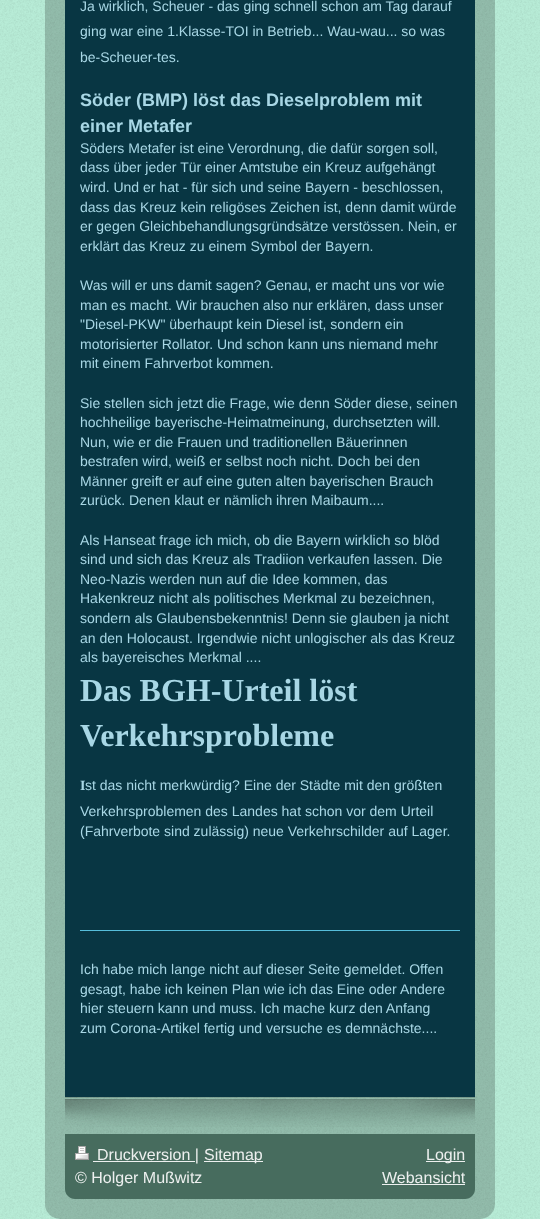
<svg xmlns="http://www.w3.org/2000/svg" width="540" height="1219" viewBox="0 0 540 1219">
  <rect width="100%" height="100%" fill="#b8ecd7"/>
  <image x="0" y="0" width="540" height="1219" href="img/1.png"/>
  <rect x="45" y="-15" width="450" height="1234" rx="15" fill="#00000033"/>
  <path d="M65 0h410v1097H65z" fill="#083643"/>
  <path d="M80 930h380v1H80z" fill="#56bedb"/>
  <image x="65" y="1097" width="410" height="30" href="img/2.png"/>
  <path d="M65 1134H475V1189C475 1194.5 470.5 1199 465 1199H75C69.5 1199 65 1194.5 65 1189Z" fill="#476c5e"/>
  <image x="75" y="1146" width="14" height="14" href="img/3.png"/>
  <path d="M93 1161h102v1H93z" fill="#edf0ef"/>
  <path d="M204 1161h59v1H204z" fill="#edf0ef"/>
  <path d="M426 1161h39v1H426z" fill="#edf0ef"/>
  <path d="M382 1184h83v1H382z" fill="#edf0ef"/>
  <g font-family="Liberation Sans" font-size="14" fill="#a8d7e5">
    <text x="80" y="11">Ja wirklich, Scheuer - das ging schnell schon am Tag darauf</text>
    <text x="80" y="36">ging war eine 1.Klasse-TOI in Betrieb... Wau-wau... so was</text>
    <text x="80" y="62">be-Scheuer-tes.</text>
  </g>
  <g font-family="Liberation Sans" font-size="18" font-weight="bold" fill="#a8d7e5">
    <text x="80" y="106">Söder (BMP) löst das Dieselproblem mit</text>
    <text x="80" y="132">einer Metafer</text>
  </g>
  <g font-family="Liberation Sans" font-size="14" fill="#a8d7e5">
    <text x="80" y="153">Söders Metafer ist eine Verordnung, die dafür sorgen soll,</text>
    <text x="80" y="172">dass über jeder Tür einer Amtstube ein Kreuz aufgehängt</text>
    <text x="80" y="192">wird. Und er hat - für sich und seine Bayern - beschlossen,</text>
    <text x="80" y="212">dass das Kreuz kein religöses Zeichen ist, denn damit würde</text>
    <text x="80" y="231">er gegen Gleichbehandlungsgründsätze verstössen. Nein, er</text>
    <text x="80" y="251">erklärt das Kreuz zu einem Symbol der Bayern.</text>
    <text x="80" y="290">Was will er uns damit sagen? Genau, er macht uns vor wie</text>
    <text x="80" y="310">man es macht. Wir brauchen also nur erklären, dass unser</text>
    <text x="80" y="329">"Diesel-PKW" überhaupt kein Diesel ist, sondern ein</text>
    <text x="80" y="349">motorisierter Rollator. Und schon kann uns niemand mehr</text>
    <text x="80" y="368">mit einem Fahrverbot kommen.</text>
    <text x="80" y="408">Sie stellen sich jetzt die Frage, wie denn Söder diese, seinen</text>
    <text x="80" y="427">hochheilige bayerische-Heimatmeinung, durchsetzten will.</text>
    <text x="80" y="447">Nun, wie er die Frauen und traditionellen Bäuerinnen</text>
    <text x="80" y="466">bestrafen wird, weiß er selbst noch nicht. Doch bei den</text>
    <text x="80" y="486">Männer greift er auf eine guten alten bayerischen Brauch</text>
    <text x="80" y="505">zurück. Denen klaut er nämlich ihren Maibaum....</text>
    <text x="80" y="545">Als Hanseat frage ich mich, ob die Bayern wirklich so blöd</text>
    <text x="80" y="564">sind und sich das Kreuz als Tradiion verkaufen lassen. Die</text>
    <text x="80" y="584">Neo-Nazis werden nun auf die Idee kommen, das</text>
    <text x="80" y="603">Hakenkreuz nicht als politisches Merkmal zu bezeichnen,</text>
    <text x="80" y="623">sondern als Glaubensbekenntnis! Denn sie glauben ja nicht</text>
    <text x="80" y="643">an den Holocaust. Irgendwie nicht unlogischer als das Kreuz</text>
    <text x="80" y="662">als bayereisches Merkmal ....</text>
  </g>
  <g font-family="Liberation Serif" font-size="32" font-weight="bold" fill="#a8d7e5">
    <text x="80" y="701">Das BGH-Urteil löst</text>
    <text x="80" y="746">Verkehrsprobleme</text>
  </g>
  <text x="80" y="790" font-family="Liberation Serif" font-size="14" font-weight="bold" fill="#a8d7e5">I</text>
  <g font-family="Liberation Sans" font-size="14" fill="#a8d7e5">
    <text x="85" y="790">st das nicht merkwürdig? Eine der Städte mit den größten</text>
    <text x="80" y="816">Verkehrsproblemen des Landes hat schon vor dem Urteil</text>
    <text x="80" y="836">(Fahrverbote sind zulässig) neue Verkehrschilder auf Lager.</text>
    <text x="80" y="974">Ich habe mich lange nicht auf dieser Seite gemeldet. Offen</text>
    <text x="80" y="994">gesagt, habe ich keinen Plan wie ich das Eine oder Andere</text>
    <text x="80" y="1013">hier steuern kann und muss. Ich mache kurz den Anfang</text>
    <text x="80" y="1033">zum Corona-Artikel fertig und versuche es demnächste....</text>
  </g>
  <g font-family="Liberation Sans" font-size="16" fill="#edf0ef">
    <text x="97" y="1160">Druckversion |</text>
    <text x="204" y="1160">Sitemap</text>
    <text x="75" y="1183">© Holger Mußwitz</text>
    <text x="426" y="1160">Login</text>
    <text x="382" y="1183">Webansicht</text>
  </g>
</svg>
